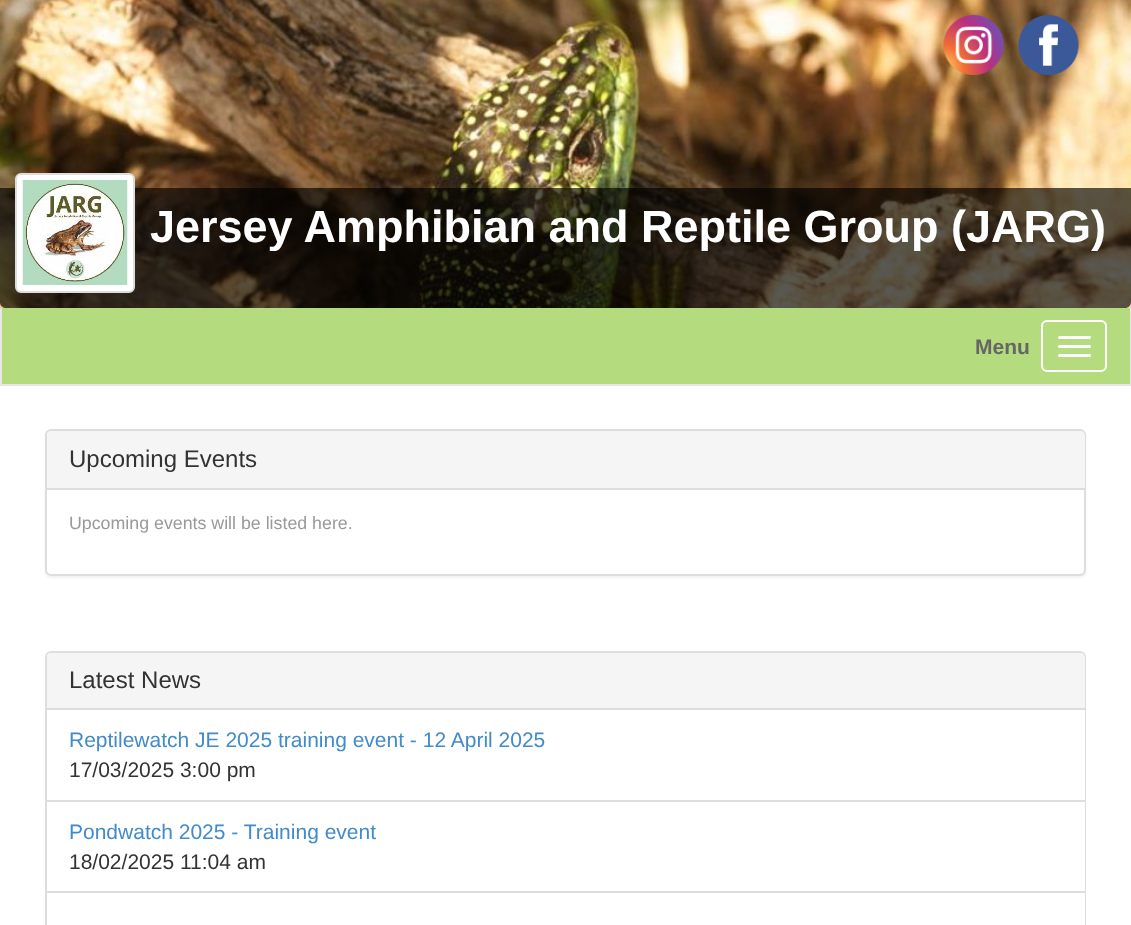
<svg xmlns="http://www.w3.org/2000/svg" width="1131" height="925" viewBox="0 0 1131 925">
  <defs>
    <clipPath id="clip1"><path d="M150 198h974v53H150z"/></clipPath>
  </defs>
  <rect width="100%" height="100%" fill="#fff"/>
  <image x="0" y="0" width="1131" height="308" href="img/1.png"/>
  <image x="943" y="15" width="61" height="60" href="img/2.png"/>
  <image x="1018" y="15" width="61" height="60" href="img/3.png"/>
  <path d="M0 188H1131V302C1131 305.5 1128.5 308 1125 308H6C2.5 308 0 305.5 0 302Z" fill="#000000a6"/>
  <rect x="16" y="174" width="118" height="118" rx="5" fill="#fff" stroke="#ddd" stroke-width="2"/>
  <image x="22" y="180" width="106" height="105" href="img/4.png"/>
  <path d="M2 308h1128v76H2z" fill="#b4dc7f"/>
  <path d="M1130 308h1v78H1130z" fill="#e7e7e7"/>
  <path d="M0 384h1131v2H0z" fill="#e7e7e7"/>
  <path d="M0 308h2v78H0z" fill="#e7e7e7"/>
  <rect x="1042" y="321" width="64" height="50" rx="5" fill="none" stroke="#fff" stroke-width="2"/>
  <rect x="1058" y="336" width="33" height="3" rx="1.5" fill="#fff"/>
  <rect x="1058" y="345" width="33" height="3" rx="1.5" fill="#fff"/>
  <rect x="1058" y="354" width="33" height="3" rx="1.5" fill="#fff"/>
  <rect x="45" y="431" width="1041" height="147" rx="6" fill="#0000000d" filter="blur(1px)"/>
  <rect x="46" y="430" width="1039" height="145" rx="5" fill="#fff" stroke="#ddd" stroke-width="2"/>
  <path d="M52 431H1080C1083 431 1085 433 1085 436V489H47V436C47 433 49 431 52 431Z" fill="#f5f5f5"/>
  <path d="M47 488h1038v2H47z" fill="#ddd"/>
  <rect x="46" y="652" width="1039" height="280" rx="5" fill="none" stroke="#ddd" stroke-width="2"/>
  <path d="M52 653H1080C1083 653 1085 655 1085 658V710H47V658C47 655 49 653 52 653Z" fill="#f5f5f5"/>
  <path d="M47 708h1038v2H47z" fill="#ddd"/>
  <path d="M1084 710h1v90H1084z" fill="#fff"/>
  <path d="M1084 802h1v89H1084z" fill="#fff"/>
  <path d="M47 800h1038v2H47z" fill="#ddd"/>
  <path d="M47 891h1038v2H47z" fill="#ddd"/>
  <path d="M1084 893h1v32H1084z" fill="#fff"/>
  <g clip-path="url(#clip1)">
    <text x="150" y="242" font-family="Liberation Sans" font-size="45" font-weight="bold" fill="#fff">Jersey Amphibian and Reptile Group (JARG)</text>
  </g>
  <text x="975" y="354" font-family="Liberation Sans" font-size="21" font-weight="bold" fill="#666">Menu</text>
  <text x="69" y="467" font-family="Liberation Sans" font-size="24" fill="#333">Upcoming Events</text>
  <text x="69" y="529" font-family="Liberation Sans" font-size="17.8" fill="#999">Upcoming events will be listed here.</text>
  <text x="69" y="688" font-family="Liberation Sans" font-size="24" fill="#333">Latest News</text>
  <text x="69" y="747" font-family="Liberation Sans" font-size="21" fill="#428bca">Reptilewatch JE 2025 training event - 12 April 2025</text>
  <text x="69" y="777" font-family="Liberation Sans" font-size="21" fill="#333">17/03/2025 3:00 pm</text>
  <text x="69" y="839" font-family="Liberation Sans" font-size="21" fill="#428bca">Pondwatch 2025 - Training event</text>
  <text x="69" y="869" font-family="Liberation Sans" font-size="21" fill="#333">18/02/2025 11:04 am</text>
</svg>
